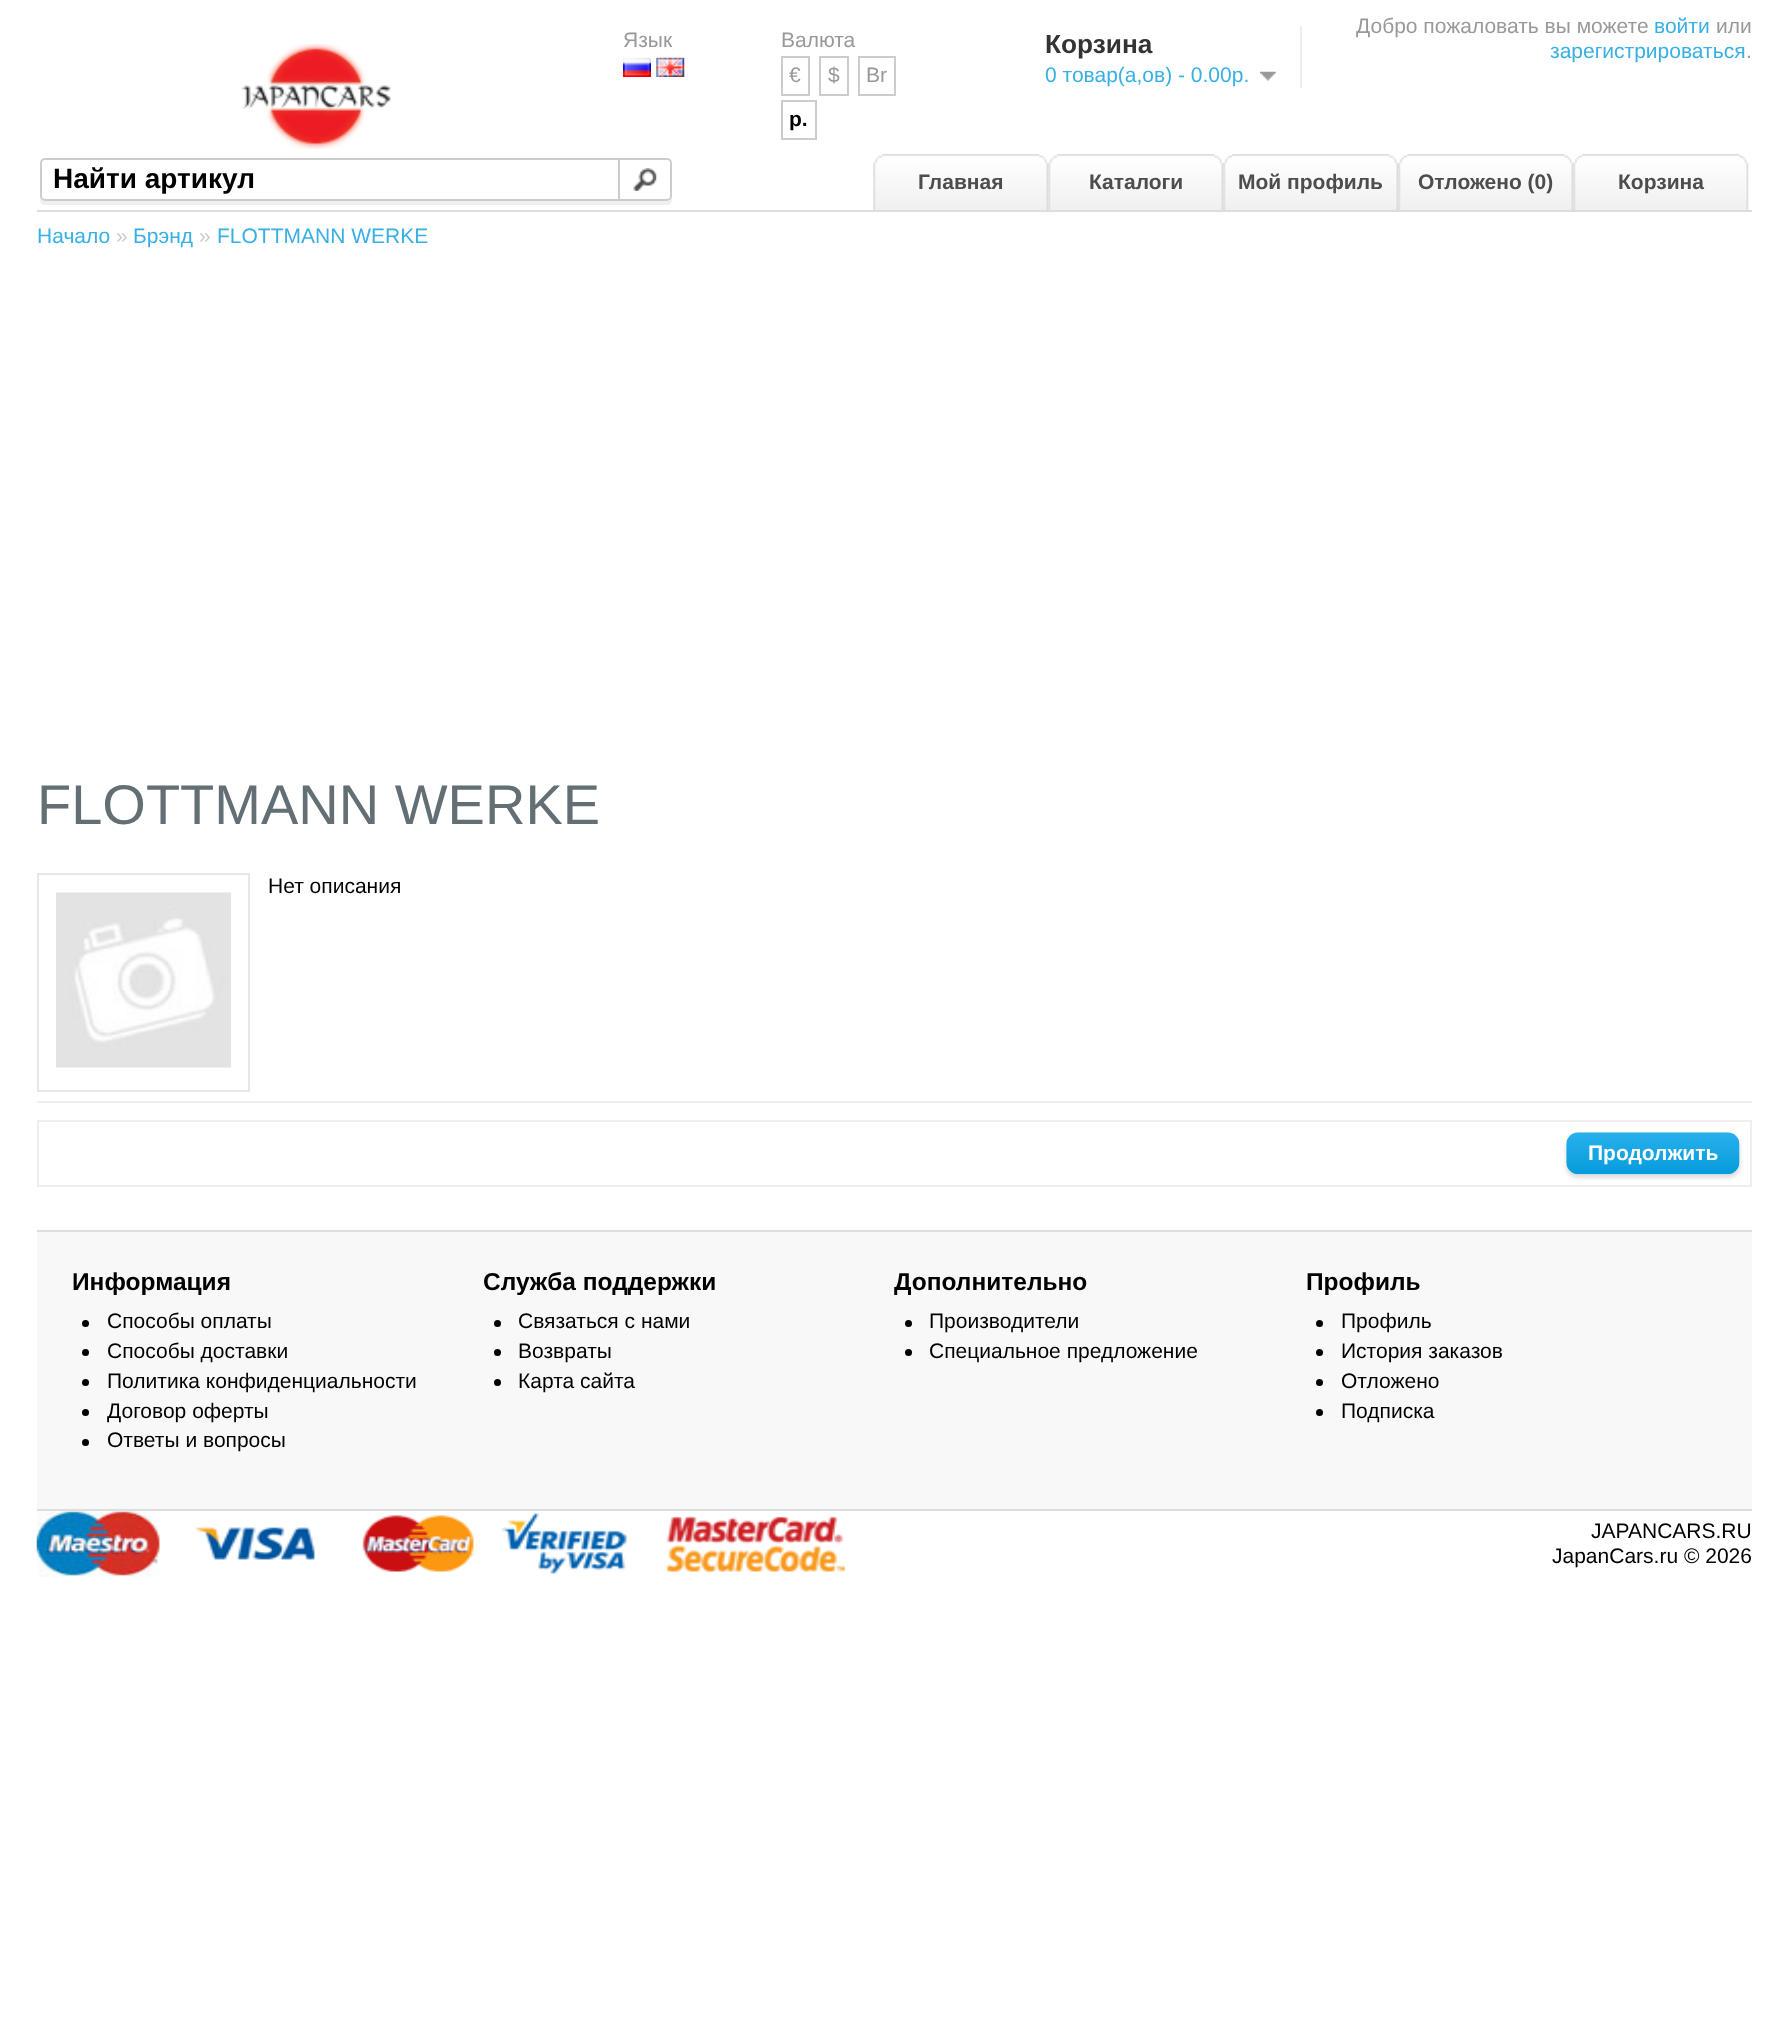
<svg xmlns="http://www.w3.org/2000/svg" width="1788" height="2042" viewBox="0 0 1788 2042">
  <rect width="100%" height="100%" fill="#fff"/>
  <path d="M37 210h1715v2H37z" fill="#dbdee1"/>
  <image x="241" y="44" width="150" height="105" href="img/1.png"/>
  <image x="623" y="57" width="28" height="20" href="img/2.png"/>
  <image x="656" y="57" width="29" height="20" href="img/3.png"/>
  <path d="M782 57h27v38H782z" fill="none" stroke="#ccc" stroke-width="2"/>
  <path d="M820 57h28v38H820z" fill="none" stroke="#ccc" stroke-width="2"/>
  <path d="M859 57h36v38H859z" fill="none" stroke="#ccc" stroke-width="2"/>
  <path d="M782 101h34v38H782z" fill="none" stroke="#ccc" stroke-width="2"/>
  <path d="M1300 26h2v62H1300z" fill="#eee"/>
  <image x="1260" y="71" width="16" height="10" href="img/4.png"/>
  <path d="M40 164V200C40 203 42 205 45 205H667C670 205 672 203 672 200V196C672 199 670 201 667 201H46C43 201 40 199 40 196Z" fill="#f0f0f0"/>
  <rect x="41" y="159" width="630" height="41" rx="4" fill="#fff" stroke="#ccc" stroke-width="2"/>
  <image x="633" y="168" width="24" height="23" href="img/5.png"/>
  <path d="M618 158h2v42H618z" fill="#ccc"/>
  <image x="873" y="154" width="176" height="56" href="img/6.png"/>
  <image x="1048" y="154" width="176" height="56" href="img/7.png"/>
  <image x="1223" y="154" width="176" height="56" href="img/8.png"/>
  <image x="1398" y="154" width="176" height="56" href="img/9.png"/>
  <image x="1573" y="154" width="176" height="56" href="img/10.png"/>
  <path d="M37 1101h1715v2H37z" fill="#eee"/>
  <path d="M38 874h211v217H38z" fill="none" stroke="#e7e7e7" stroke-width="2"/>
  <image x="56" y="892" width="175" height="176" href="img/11.png"/>
  <path d="M38 1121h1713v65H38z" fill="none" stroke="#eee" stroke-width="2"/>
  <rect x="1566" y="1136" width="174" height="42" rx="12" fill="#ddd" filter="blur(2px)"/>
  <image x="1566" y="1132" width="174" height="43" href="img/12.png"/>
  <path d="M37 1232h1715v277H37z" fill="#f8f8f8"/>
  <path d="M37 1230h1715v2H37z" fill="#dbdee1"/>
  <image x="36" y="1510" width="810" height="67" href="img/13.png"/>
  <path d="M37 1509h1715v2H37z" fill="#dbdee1"/>
  <circle cx="85.5" cy="1323.5" r="3.5" fill="#000"/>
  <circle cx="85.5" cy="1352.5" r="3.5" fill="#000"/>
  <circle cx="85.5" cy="1382.5" r="3.5" fill="#000"/>
  <circle cx="85.5" cy="1412.5" r="3.5" fill="#000"/>
  <circle cx="85.5" cy="1442.5" r="3.5" fill="#000"/>
  <circle cx="497.5" cy="1323.5" r="3.5" fill="#000"/>
  <circle cx="497.5" cy="1352.5" r="3.5" fill="#000"/>
  <circle cx="497.5" cy="1382.5" r="3.5" fill="#000"/>
  <circle cx="908.5" cy="1323.5" r="3.5" fill="#000"/>
  <circle cx="908.5" cy="1352.5" r="3.5" fill="#000"/>
  <circle cx="1319.5" cy="1323.5" r="3.5" fill="#000"/>
  <circle cx="1319.5" cy="1352.5" r="3.5" fill="#000"/>
  <circle cx="1319.5" cy="1382.5" r="3.5" fill="#000"/>
  <circle cx="1319.5" cy="1412.5" r="3.5" fill="#000"/>
  <g font-family="Liberation Sans" font-size="21" fill="#999">
    <text x="623" y="47">Язык</text>
    <text x="781" y="47">Валюта</text>
    <text x="789" y="82">€</text>
    <text x="828" y="82">$</text>
    <text x="866" y="82">Br</text>
  </g>
  <text x="789" y="126" font-family="Liberation Sans" font-size="21" font-weight="bold" fill="#000">р.</text>
  <text x="1045" y="53" font-family="Liberation Sans" font-size="26.25" font-weight="bold" fill="#333">Корзина</text>
  <text x="1045" y="82" font-family="Liberation Sans" font-size="21" fill="#38b0e3">0 товар(а,ов) - 0.00р.</text>
  <text x="1356" y="33" font-family="Liberation Sans" font-size="21" fill="#999">Добро пожаловать вы можете</text>
  <text x="1654" y="33" font-family="Liberation Sans" font-size="21" fill="#38b0e3">войти</text>
  <text x="1716" y="33" font-family="Liberation Sans" font-size="21" fill="#999">или</text>
  <text x="1550" y="58" font-family="Liberation Sans" font-size="21" fill="#38b0e3">зарегистрироваться</text>
  <text x="1746" y="58" font-family="Liberation Sans" font-size="21" fill="#999">.</text>
  <text x="53" y="188" font-family="Liberation Sans" font-size="28" font-weight="bold" fill="#000">Найти артикул</text>
  <g font-family="Liberation Sans" font-size="21" font-weight="bold" fill="#4d4d4d">
    <text x="918" y="189">Главная</text>
    <text x="1089" y="189">Каталоги</text>
    <text x="1238" y="189">Мой профиль</text>
    <text x="1418" y="189">Отложено (0)</text>
    <text x="1618" y="189">Корзина</text>
  </g>
  <text x="37" y="243" font-family="Liberation Sans" font-size="21" fill="#38b0e3">Начало</text>
  <text x="116" y="243" font-family="Liberation Sans" font-size="21" fill="#ccc">»</text>
  <text x="133" y="243" font-family="Liberation Sans" font-size="21" fill="#38b0e3">Брэнд</text>
  <text x="199" y="243" font-family="Liberation Sans" font-size="21" fill="#ccc">»</text>
  <text x="217" y="243" font-family="Liberation Sans" font-size="21" fill="#38b0e3">FLOTTMANN WERKE</text>
  <text x="37" y="824" font-family="Liberation Sans" font-size="56" fill="#636e75">FLOTTMANN WERKE</text>
  <text x="268" y="893" font-family="Liberation Sans" font-size="21" fill="#000">Нет описания</text>
  <text x="1588" y="1160" font-family="Liberation Sans" font-size="21" font-weight="bold" fill="#fff">Продолжить</text>
  <text x="72" y="1290" font-family="Liberation Sans" font-size="24.5" font-weight="bold" fill="#000">Информация</text>
  <g font-family="Liberation Sans" font-size="21" fill="#000">
    <text x="107" y="1328">Способы оплаты</text>
    <text x="107" y="1358">Способы доставки</text>
    <text x="107" y="1388">Политика конфиденциальности</text>
    <text x="107" y="1418">Договор оферты</text>
    <text x="107" y="1447">Ответы и вопросы</text>
  </g>
  <text x="483" y="1290" font-family="Liberation Sans" font-size="24.5" font-weight="bold" fill="#000">Служба поддержки</text>
  <g font-family="Liberation Sans" font-size="21" fill="#000">
    <text x="518" y="1328">Связаться с нами</text>
    <text x="518" y="1358">Возвраты</text>
    <text x="518" y="1388">Карта сайта</text>
  </g>
  <text x="894" y="1290" font-family="Liberation Sans" font-size="24.5" font-weight="bold" fill="#000">Дополнительно</text>
  <g font-family="Liberation Sans" font-size="21" fill="#000">
    <text x="929" y="1328">Производители</text>
    <text x="929" y="1358">Специальное предложение</text>
  </g>
  <text x="1306" y="1290" font-family="Liberation Sans" font-size="24.5" font-weight="bold" fill="#000">Профиль</text>
  <g font-family="Liberation Sans" font-size="21" fill="#000">
    <text x="1341" y="1328">Профиль</text>
    <text x="1341" y="1358">История заказов</text>
    <text x="1341" y="1388">Отложено</text>
    <text x="1341" y="1418">Подписка</text>
    <text x="1591" y="1538">JAPANCARS.RU</text>
    <text x="1552" y="1563">JapanCars.ru © 2026</text>
  </g>
</svg>
